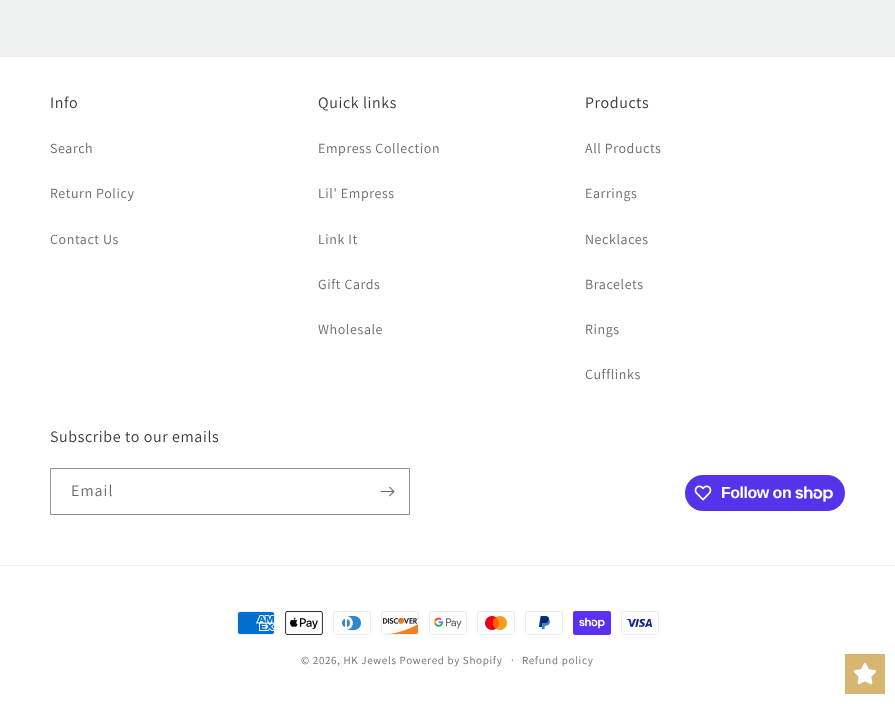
<svg xmlns="http://www.w3.org/2000/svg" width="895" height="704" viewBox="0 0 895 704">
  <rect width="100%" height="100%" fill="#eff1f1"/>
  <path d="M0 57h895v647H0z" fill="#fff"/>
  <path d="M50.5 468.5h359v46H50.5z" fill="none" stroke="#929193"/>
  <image x="380" y="486" width="15" height="11" href="img/1.png"/>
  <rect x="685" y="475" width="160" height="36" rx="18" fill="#5433eb"/>
  <image x="694" y="485" width="18" height="16" href="img/2.png"/>
  <image x="795" y="486" width="38" height="16" href="img/3.png"/>
  <path d="M0 565h895v1H0z" fill="#efefef"/>
  <image x="237" y="611" width="38" height="24" href="img/4.png"/>
  <image x="285" y="611" width="38" height="24" href="img/5.png"/>
  <image x="333" y="611" width="38" height="24" href="img/6.png"/>
  <image x="381" y="611" width="38" height="24" href="img/7.png"/>
  <image x="429" y="611" width="38" height="24" href="img/8.png"/>
  <image x="477" y="611" width="38" height="24" href="img/9.png"/>
  <image x="525" y="611" width="38" height="24" href="img/10.png"/>
  <image x="573" y="611" width="38" height="24" href="img/11.png"/>
  <image x="621" y="611" width="38" height="24" href="img/12.png"/>
  <path d="M845 654h40v40H845z" fill="#d7b671"/>
  <image x="853" y="663" width="24" height="22" href="img/13.png"/>
  <text x="50" y="108" font-family="Assistant" font-size="16" letter-spacing="0.6" fill="#38373b">Info</text>
  <g font-family="Assistant" font-size="14" letter-spacing="0.6" fill="#6a696c">
    <text x="50" y="153">Search</text>
    <text x="50" y="198">Return Policy</text>
    <text x="50" y="244">Contact Us</text>
  </g>
  <text x="318" y="108" font-family="Assistant" font-size="16" letter-spacing="0.6" fill="#38373b">Quick links</text>
  <g font-family="Assistant" font-size="14" letter-spacing="0.6" fill="#6a696c">
    <text x="318" y="153">Empress Collection</text>
    <text x="318" y="198">Lil' Empress</text>
    <text x="318" y="244">Link It</text>
    <text x="318" y="289">Gift Cards</text>
    <text x="318" y="334">Wholesale</text>
  </g>
  <text x="585" y="108" font-family="Assistant" font-size="16" letter-spacing="0.6" fill="#38373b">Products</text>
  <g font-family="Assistant" font-size="14" letter-spacing="0.6" fill="#6a696c">
    <text x="585" y="153">All Products</text>
    <text x="585" y="198">Earrings</text>
    <text x="585" y="244">Necklaces</text>
    <text x="585" y="289">Bracelets</text>
    <text x="585" y="334">Rings</text>
    <text x="585" y="379">Cufflinks</text>
  </g>
  <text x="50" y="442" font-family="Assistant" font-size="16" letter-spacing="0.6" fill="#38373b">Subscribe to our emails</text>
  <text x="71" y="496" font-family="Assistant" font-size="16" letter-spacing="1" fill="#6a696c">Email</text>
  <text x="721" y="498" font-family="Liberation Sans" font-size="16" font-weight="bold" letter-spacing="-0.5" fill="#fff">Follow on</text>
  <text x="301" y="664" font-family="Assistant" font-size="11" letter-spacing="0.7" fill="#6a696c">© 2026, HK Jewels Powered by Shopify</text>
  <text x="511" y="664" font-family="Assistant" font-size="12" letter-spacing="0.7" fill="#6a696c">·</text>
  <text x="522" y="664" font-family="Assistant" font-size="11" letter-spacing="0.7" fill="#6a696c">Refund policy</text>
</svg>
